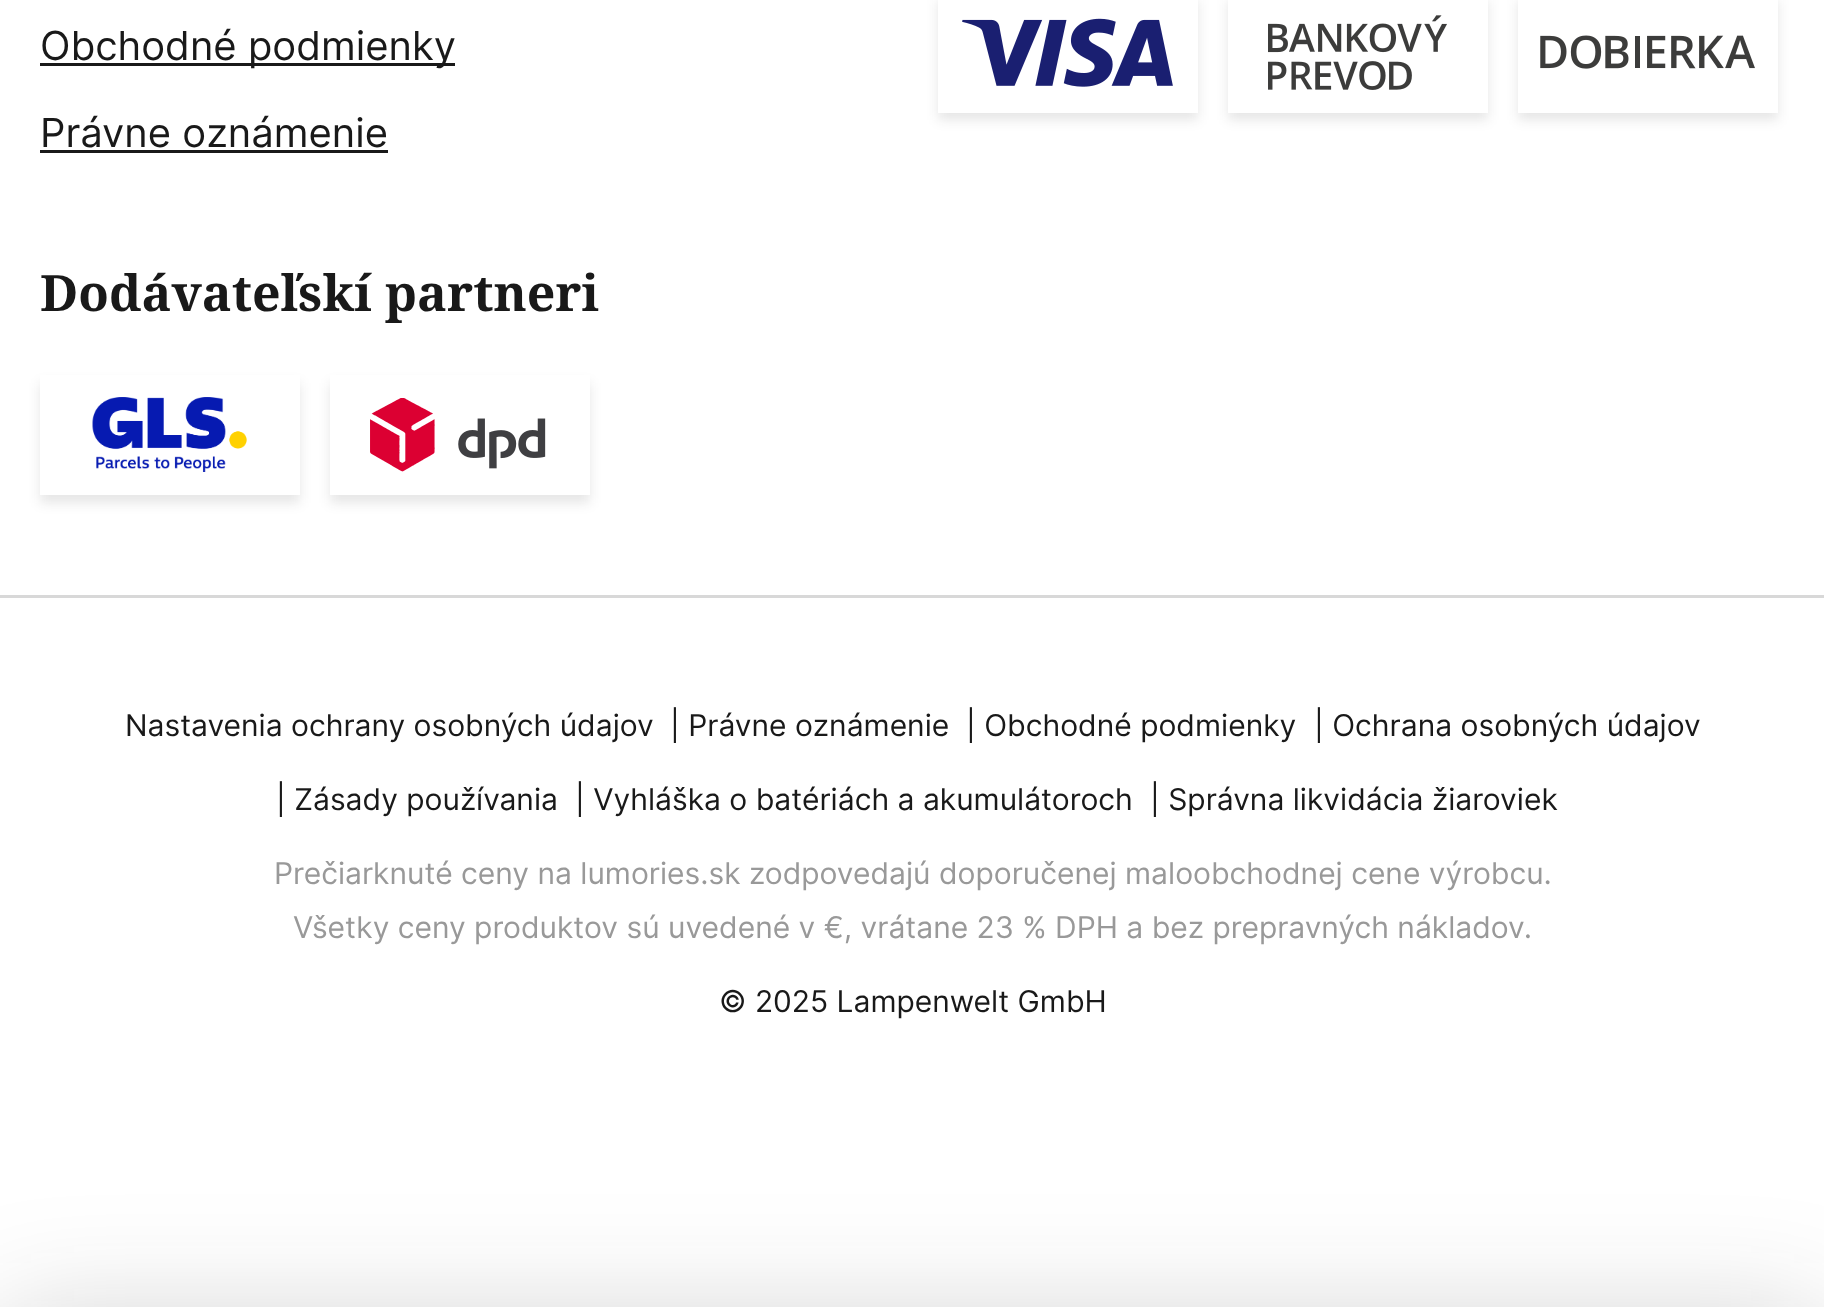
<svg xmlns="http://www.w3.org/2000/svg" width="1824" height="1307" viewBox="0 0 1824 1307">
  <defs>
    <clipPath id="clip1"><path d="M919 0H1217V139H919ZM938-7H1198V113H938Z" clip-rule="evenodd"/></clipPath>
    <clipPath id="clip2"><path d="M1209 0H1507V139H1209ZM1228-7H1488V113H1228Z" clip-rule="evenodd"/></clipPath>
    <clipPath id="clip3"><path d="M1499 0H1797V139H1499ZM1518-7H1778V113H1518Z" clip-rule="evenodd"/></clipPath>
    <clipPath id="clip4"><path d="M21 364H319V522H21ZM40 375H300V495H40Z" clip-rule="evenodd"/></clipPath>
    <clipPath id="clip5"><path d="M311 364H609V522H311ZM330 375H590V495H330Z" clip-rule="evenodd"/></clipPath>
  </defs>
  <rect width="100%" height="100%" fill="#fff"/>
  <path d="M0 595h1824v3H0z" fill="#d8d8d8"/>
  <path d="M40 63h415v3H40z" fill="#191919"/>
  <path d="M40 150h348v3H40z" fill="#191919"/>
  <g clip-path="url(#clip1)">
    <path d="M938 0h260v120H938z" fill="#1919191c" filter="blur(6px)"/>
  </g>
  <image x="962" y="18" width="211" height="69" href="img/1.png"/>
  <g clip-path="url(#clip2)">
    <path d="M1228 0h260v120H1228z" fill="#1919191c" filter="blur(6px)"/>
  </g>
  <image x="1268" y="15" width="179" height="75" href="img/2.png"/>
  <g clip-path="url(#clip3)">
    <path d="M1518 0h260v120H1518z" fill="#1919191c" filter="blur(6px)"/>
  </g>
  <image x="1540" y="35" width="215" height="34" href="img/3.png"/>
  <g clip-path="url(#clip4)">
    <path d="M40 383h260v120H40z" fill="#1919191c" filter="blur(6px)"/>
  </g>
  <image x="92" y="397" width="155" height="75" href="img/4.png"/>
  <g clip-path="url(#clip5)">
    <path d="M330 383h260v120H330z" fill="#1919191c" filter="blur(6px)"/>
  </g>
  <image x="370" y="398" width="176" height="74" href="img/5.png"/>
  <path d="M0 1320h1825v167H0z" fill="#19191933" filter="blur(60px)"/>
  <g font-family="Inter" font-size="40" fill="#191919">
    <text x="40" y="60">Obchodné podmienky</text>
    <text x="40" y="147">Právne oznámenie</text>
  </g>
  <text x="40" y="311" font-family="Noto Serif" font-size="50" font-weight="bold" fill="#191919">Dodávateľskí partneri</text>
  <g font-family="Inter" font-size="30" fill="#191919">
    <text x="125" y="736">Nastavenia ochrany osobných údajov</text>
    <text x="670" y="736">| Právne oznámenie</text>
    <text x="966" y="736">| Obchodné podmienky</text>
    <text x="1314" y="736">| Ochrana osobných údajov</text>
    <text x="276" y="810">| Zásady používania</text>
    <text x="575" y="810">| Vyhláška o batériách a akumulátoroch</text>
    <text x="1150" y="810">| Správna likvidácia žiaroviek</text>
  </g>
  <g font-family="Inter" font-size="30" fill="#999">
    <text x="274" y="884">Prečiarknuté ceny na lumories.sk zodpovedajú doporučenej maloobchodnej cene výrobcu.</text>
    <text x="293" y="938">Všetky ceny produktov sú uvedené v €, vrátane 23 % DPH a bez prepravných nákladov.</text>
  </g>
  <text x="719" y="1012" font-family="Inter" font-size="30" fill="#191919">© 2025 Lampenwelt GmbH</text>
</svg>
